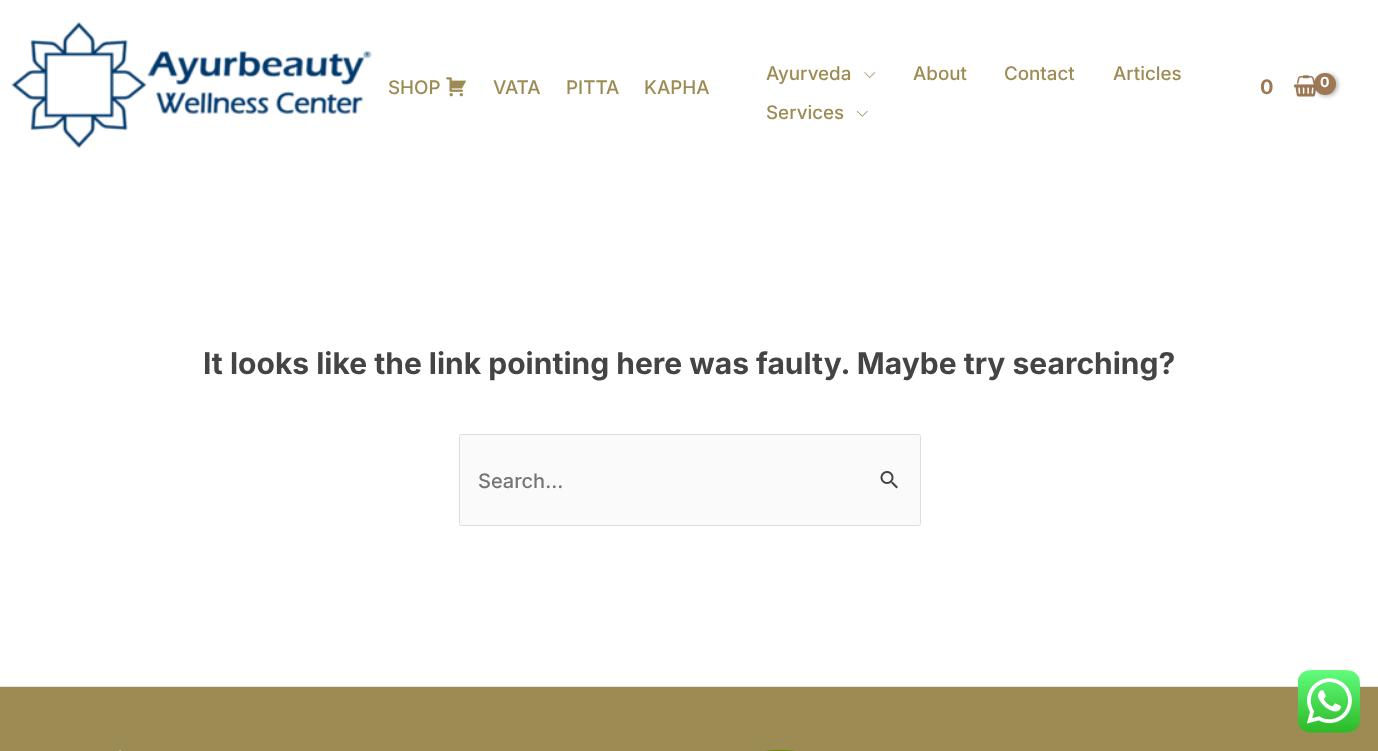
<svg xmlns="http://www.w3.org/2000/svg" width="1378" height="751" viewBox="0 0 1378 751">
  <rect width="100%" height="100%" fill="#fff"/>
  <image x="11" y="22" width="361" height="126" href="img/1.png"/>
  <image x="446" y="77" width="21" height="20" href="img/2.png"/>
  <image x="864" y="72" width="12" height="6" href="img/3.png"/>
  <image x="856" y="110" width="12" height="7" href="img/4.png"/>
  <image x="1293" y="75" width="23" height="22" href="img/5.png"/>
  <rect x="1315" y="74" width="23" height="22" rx="11" fill="#0000004d" filter="blur(2px)"/>
  <circle cx="1325" cy="84" r="11" fill="#9c7954"/>
  <rect x="459.5" y="434.5" width="461" height="91" rx="2" fill="#fafafa" stroke="#ddd"/>
  <image x="880" y="471" width="18" height="18" href="img/6.png"/>
  <path d="M0 687h1378v64H0z" fill="#9c8c54"/>
  <path d="M0 686h1378v1H0z" fill="#e6e6e6"/>
  <image x="119" y="750" width="2" height="1" href="img/7.png"/>
  <image x="765" y="750" width="30" height="1" href="img/8.png"/>
  <image x="1298" y="670" width="62" height="63" href="img/9.png"/>
  <g font-family="Inter" font-size="18.75" font-weight="500" fill="#9c8c54">
    <text x="388" y="94">SHOP</text>
    <text x="493" y="94">VATA</text>
    <text x="566" y="94">PITTA</text>
    <text x="644" y="94">KAPHA</text>
    <text x="766" y="80">Ayurveda</text>
    <text x="913" y="80">About</text>
    <text x="1004" y="80">Contact</text>
    <text x="1113" y="80">Articles</text>
    <text x="766" y="119">Services</text>
  </g>
  <text x="1260" y="94" font-family="Inter" font-size="20" font-weight="bold" fill="#9c7954">0</text>
  <text x="1320" y="87" font-family="Inter" font-size="14" font-weight="bold" letter-spacing="-1" fill="#fff">0</text>
  <text x="203" y="374" font-family="Inter" font-size="30" font-weight="bold" fill="#444">It looks like the link pointing here was faulty. Maybe try searching?</text>
  <text x="478" y="488" font-family="Inter" font-size="20" font-weight="500" fill="#757575">Search...</text>
</svg>
